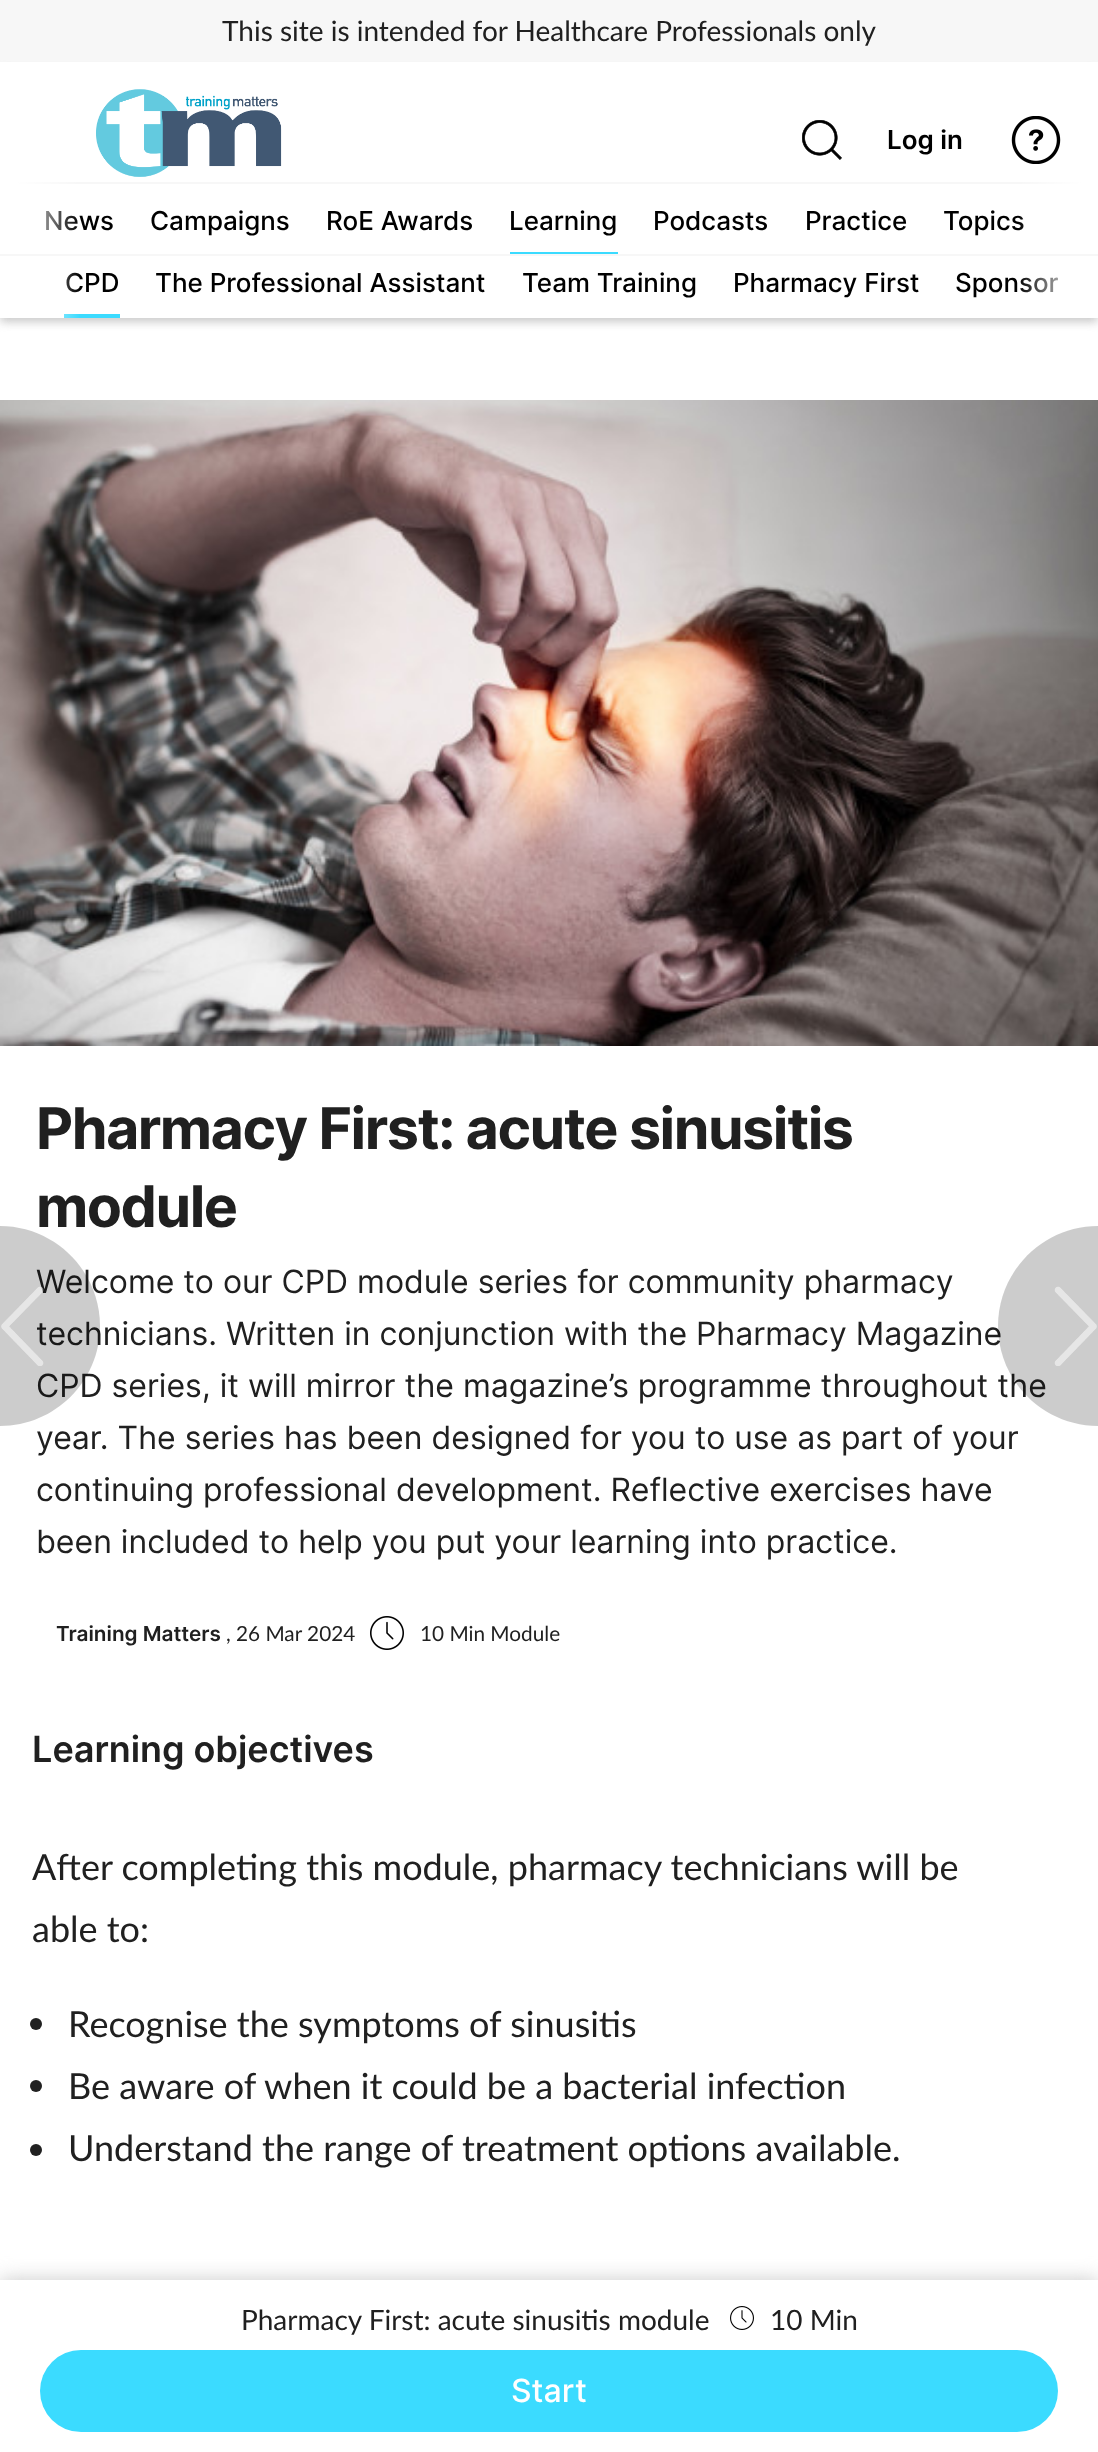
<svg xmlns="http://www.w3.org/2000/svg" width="1098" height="2452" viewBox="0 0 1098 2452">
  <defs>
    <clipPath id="clip1"><path d="M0 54H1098V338H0ZM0 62H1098V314H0Z" clip-rule="evenodd"/></clipPath>
    <linearGradient id="g1" gradientUnits="userSpaceOnUse" x1="80" y1="224" x2="0" y2="224"><stop offset="0" stop-color="#fff" stop-opacity="0"/><stop offset="0.8" stop-color="#fff"/></linearGradient>
    <linearGradient id="g2" gradientUnits="userSpaceOnUse" x1="1018" y1="224" x2="1098" y2="224"><stop offset="0" stop-color="#fff" stop-opacity="0"/><stop offset="0.8" stop-color="#fff"/></linearGradient>
    <linearGradient id="g3" gradientUnits="userSpaceOnUse" x1="80" y1="287" x2="0" y2="287"><stop offset="0" stop-color="#fff" stop-opacity="0"/><stop offset="0.8" stop-color="#fff"/></linearGradient>
    <linearGradient id="g4" gradientUnits="userSpaceOnUse" x1="1018" y1="287" x2="1098" y2="287"><stop offset="0" stop-color="#fff" stop-opacity="0"/><stop offset="0.8" stop-color="#fff"/></linearGradient>
  </defs>
  <rect width="100%" height="100%" fill="#fff"/>
  <path d="M0 0h1098v62H0z" fill="#f7f7f7"/>
  <g clip-path="url(#clip1)">
    <path d="M0 70h1098v252H0z" fill="#c9c9c9" filter="blur(5px)"/>
  </g>
  <image x="96" y="89" width="186" height="88" href="img/1.png"/>
  <image x="802" y="120" width="40" height="40" href="img/2.png"/>
  <image x="1011" y="116" width="50" height="48" href="img/3.png"/>
  <path d="M16 182h1066v2H16z" fill="#f7f7f7"/>
  <path d="M510 252h108v2H510z" fill="#3bdbff"/>
  <path d="M16 314h1066v4H16z" fill="#fff"/>
  <path d="M0 254h1098v2H0z" fill="#f7f7f7"/>
  <path d="M64 314h56v4H64z" fill="#3bdbff"/>
  <image x="0" y="400" width="1098" height="646" href="img/4.png"/>
  <image x="370" y="1616" width="34" height="34" href="img/5.png"/>
  <circle cx="36" cy="2024" r="6" fill="#212121"/>
  <circle cx="36" cy="2086" r="6" fill="#212121"/>
  <circle cx="36" cy="2150" r="6" fill="#212121"/>
  <path d="M0 2280h1098v172H0z" fill="#c9c9c9" filter="blur(10px)"/>
  <path d="M0 2280h1098v172H0z" fill="#fff"/>
  <image x="730" y="2306" width="24" height="24" href="img/8.png"/>
  <rect x="40" y="2350" width="1018" height="82" rx="41" fill="#3bdbff"/>
  <text x="222" y="41" font-family="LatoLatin" font-size="28" fill="#202020">This site is intended for Healthcare Professionals only</text>
  <text x="887" y="149" font-family="Inter" font-size="26" font-weight="600" fill="#000">Log in</text>
  <text x="44" y="230" font-family="Inter" font-size="26" font-weight="500" fill="#000">News</text>
  <path d="M16 182h62v49H16z" fill="url(#g1)"/>
  <g font-family="Inter" font-size="26" font-weight="500" fill="#000">
    <text x="150" y="230">Campaigns</text>
    <text x="326" y="230">RoE Awards</text>
    <text x="509" y="230">Learning</text>
    <text x="653" y="230">Podcasts</text>
    <text x="805" y="230">Practice</text>
    <text x="943" y="230">Topics</text>
  </g>
  <path d="M1019 182h63v48H1019z" fill="url(#g2)"/>
  <text x="65" y="292" font-family="Inter" font-size="26" font-weight="500" fill="#000">CPD</text>
  <path d="M0 272h79v46H0z" fill="url(#g3)"/>
  <g font-family="Inter" font-size="26" font-weight="500" fill="#000">
    <text x="155" y="292">The Professional Assistant</text>
    <text x="522" y="292">Team Training</text>
    <text x="733" y="292">Pharmacy First</text>
    <text x="955" y="292">Sponsor</text>
  </g>
  <path d="M1020 277h78v41H1020z" fill="url(#g4)"/>
  <g font-family="Inter" font-size="57.4" font-weight="bold" letter-spacing="-1.5" fill="#202020">
    <text x="36" y="1149">Pharmacy First: acute sinusitis</text>
    <text x="36" y="1227">module</text>
  </g>
  <g font-family="Inter" font-size="32" fill="#202020">
    <text x="36" y="1293">Welcome to our CPD module series for community pharmacy</text>
    <text x="36" y="1345">technicians. Written in conjunction with the Pharmacy Magazine</text>
    <text x="36" y="1397">CPD series, it will mirror the magazine’s programme throughout the</text>
    <text x="36" y="1449">year. The series has been designed for you to use as part of your</text>
    <text x="36" y="1501">continuing professional development. Reflective exercises have</text>
    <text x="36" y="1553">been included to help you put your learning into practice.</text>
  </g>
  <text x="56" y="1641" font-family="Inter" font-size="20.75" font-weight="600" fill="#202020">Training Matters</text>
  <g font-family="LatoLatin" font-size="20.75" fill="#202020">
    <text x="226" y="1641">, 26 Mar 2024</text>
    <text x="420" y="1641">10 Min Module</text>
  </g>
  <path d="M0 1226C55 1226 100 1271 100 1326C100 1381 55 1426 0 1426Z" fill="#00000033"/>
  <image x="1" y="1286" width="43" height="80" href="img/6.png"/>
  <path d="M1098 1226V1426C1043 1426 998 1381 998 1326C998 1271 1043 1226 1098 1226Z" fill="#00000033"/>
  <image x="1054" y="1286" width="43" height="80" href="img/7.png"/>
  <text x="32" y="1762" font-family="Inter" font-size="36" font-weight="600" fill="#202020">Learning objectives</text>
  <g font-family="LatoLatin" font-size="36" fill="#202020">
    <text x="32" y="1880">After completing this module, pharmacy technicians will be</text>
    <text x="32" y="1942">able to:</text>
    <text x="68" y="2037">Recognise the symptoms of sinusitis</text>
    <text x="68" y="2099">Be aware of when it could be a bacterial infection</text>
    <text x="68" y="2161">Understand the range of treatment options available.</text>
  </g>
  <g font-family="LatoLatin" font-size="28" fill="#202020">
    <text x="241" y="2330">Pharmacy First: acute sinusitis module</text>
    <text x="770" y="2330">10 Min</text>
  </g>
  <text x="511" y="2402" font-family="Inter" font-size="32" font-weight="500" fill="#fff">Start</text>
</svg>
